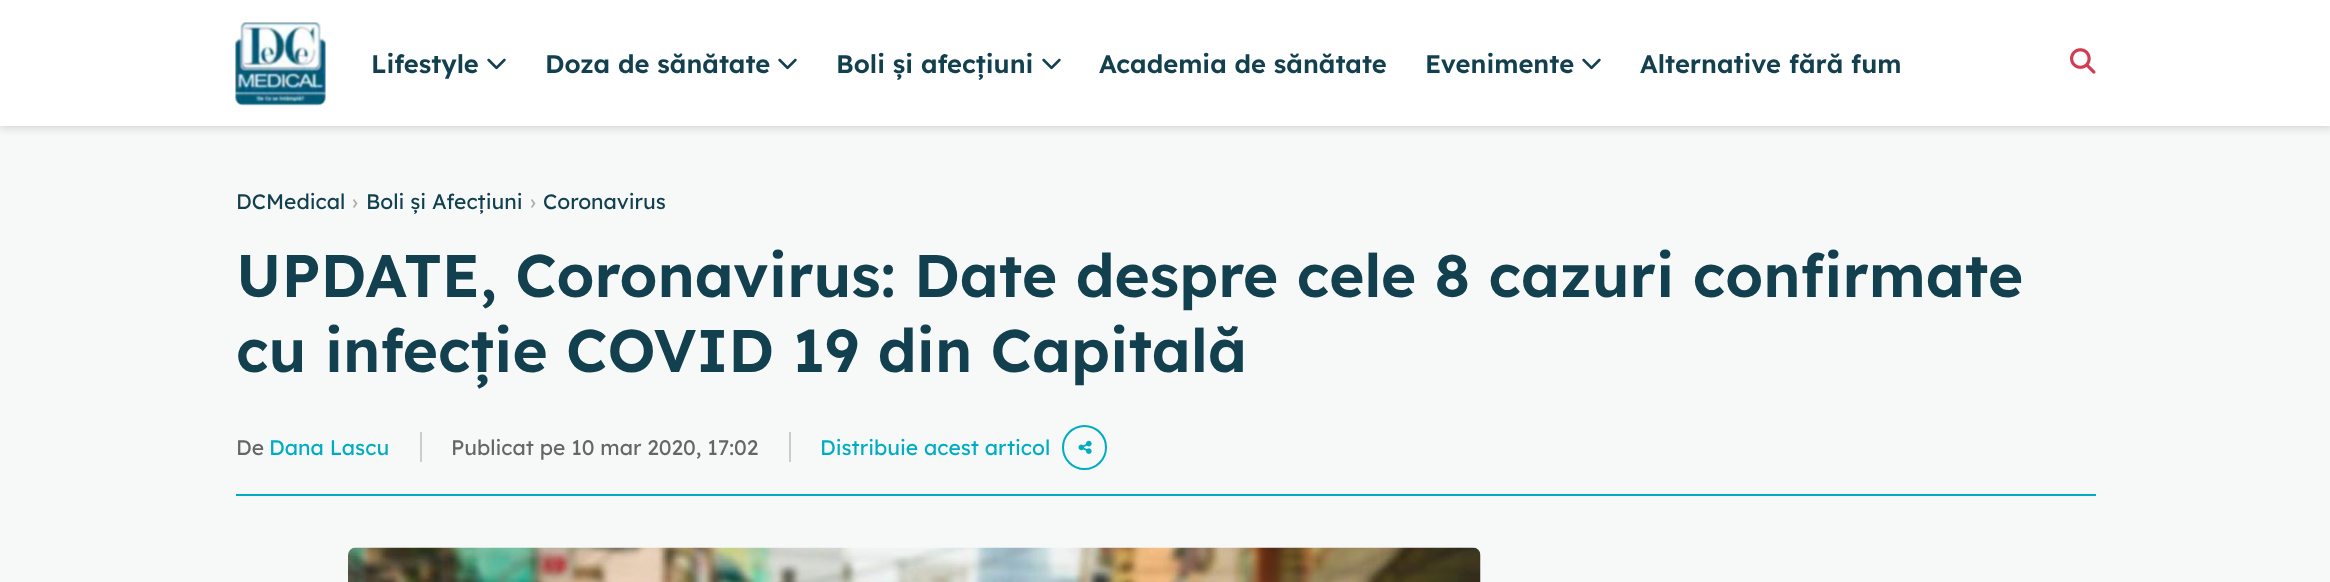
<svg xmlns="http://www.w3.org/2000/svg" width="2330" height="582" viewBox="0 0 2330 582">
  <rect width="100%" height="100%" fill="#f7f9f9"/>
  <path d="M-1 -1h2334v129H-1z" fill="#d1d1d1" filter="blur(4.5px)"/>
  <path d="M0 0h2330v126H0z" fill="#fff"/>
  <image x="235" y="22" width="91" height="84" href="img/1.png"/>
  <image x="487" y="58" width="19" height="12" href="img/2.png"/>
  <image x="778" y="58" width="19" height="12" href="img/2.png"/>
  <image x="1042" y="58" width="19" height="12" href="img/2.png"/>
  <image x="1582" y="58" width="19" height="12" href="img/2.png"/>
  <image x="2070" y="48" width="26" height="26" href="img/3.png"/>
  <path d="M236 494h1860v2H236z" fill="#00acc4"/>
  <path d="M420 432h2v30H420z" fill="#ccc"/>
  <path d="M789 432h2v30H789z" fill="#ccc"/>
  <circle cx="1084.5" cy="447.5" r="21.5" fill="none" stroke="#00acc4" stroke-width="2"/>
  <image x="1078" y="440" width="14" height="14" href="img/4.png"/>
  <image x="348" y="547" width="1133" height="35" href="img/5.png"/>
  <g font-family="Lexend" font-size="25.5" font-weight="600" fill="#13404f">
    <text x="371" y="73">Lifestyle</text>
    <text x="545" y="73">Doza de sănătate</text>
    <text x="836" y="73">Boli și afecțiuni</text>
    <text x="1099" y="73">Academia de sănătate</text>
    <text x="1425" y="73">Evenimente</text>
    <text x="1640" y="73">Alternative fără fum</text>
  </g>
  <text x="236" y="209" font-family="Lexend" font-size="21" fill="#13404f">DCMedical</text>
  <text x="352" y="209" font-family="Lexend" font-size="21" fill="#aeaeae">›</text>
  <text x="366" y="209" font-family="Lexend" font-size="21" fill="#13404f">Boli și Afecțiuni</text>
  <text x="530" y="209" font-family="Lexend" font-size="21" fill="#aeaeae">›</text>
  <text x="543" y="209" font-family="Lexend" font-size="21" fill="#13404f">Coronavirus</text>
  <g font-family="Lexend" font-size="60" font-weight="600" fill="#13404f">
    <text x="236" y="297">UPDATE, Coronavirus: Date despre cele 8 cazuri confirmate</text>
    <text x="236" y="372">cu infecție COVID 19 din Capitală</text>
  </g>
  <text x="236" y="455" font-family="Lexend" font-size="21" fill="#666">De</text>
  <text x="269" y="455" font-family="Lexend" font-size="21" fill="#00acc4">Dana Lascu</text>
  <text x="451" y="455" font-family="Lexend" font-size="21" fill="#666">Publicat pe 10 mar 2020, 17:02</text>
  <text x="820" y="455" font-family="Lexend" font-size="21" fill="#00acc4">Distribuie acest articol</text>
</svg>
